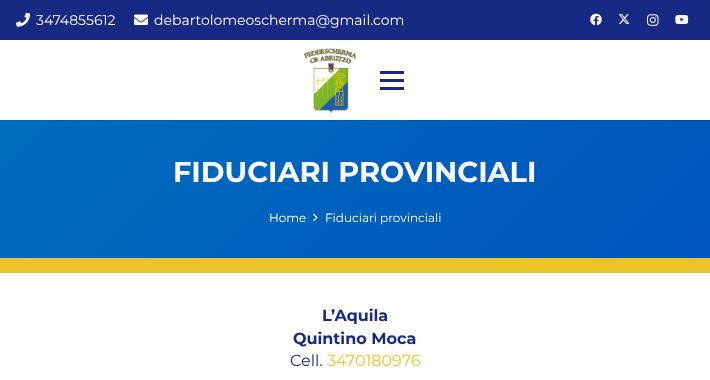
<svg xmlns="http://www.w3.org/2000/svg" width="710" height="380" viewBox="0 0 710 380">
  <defs>
    <linearGradient id="g1" gradientUnits="userSpaceOnUse" x1="113" y1="-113" x2="597" y2="371"><stop offset="0" stop-color="#0071bc"/><stop offset="1" stop-color="#0053bc"/></linearGradient>
    <linearGradient id="g2" gradientUnits="userSpaceOnUse" x1="113" y1="-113" x2="597" y2="371"><stop offset="0" stop-color="#0068ad"/><stop offset="1" stop-color="#004cad"/></linearGradient>
  </defs>
  <rect width="100%" height="100%" fill="#fff"/>
  <path d="M0 0h710v40H0z" fill="#182983"/>
  <image x="16" y="12" width="14" height="15" href="img/1.png"/>
  <image x="134" y="14" width="14" height="11" href="img/2.png"/>
  <image x="590" y="13" width="12" height="13" href="img/3.png"/>
  <image x="618" y="14" width="12" height="10" href="img/4.png"/>
  <image x="647" y="14" width="12" height="12" href="img/5.png"/>
  <image x="675" y="15" width="14" height="9" href="img/6.png"/>
  <image x="304" y="48" width="52" height="66" href="img/7.png"/>
  <path d="M380 79h24v3H380z" fill="#182983"/>
  <path d="M380 71h24v3H380z" fill="#182983"/>
  <path d="M380 87h24v3H380z" fill="#182983"/>
  <path d="M0 121h710v137H0z" fill="url(#g1)"/>
  <path d="M0 120h710v1H0z" fill="url(#g2)"/>
  <path d="M0 258h710v15H0z" fill="#ebc42b"/>
  <image x="313" y="213" width="5" height="9" href="img/8.png"/>
  <g font-family="Montserrat" font-size="14" fill="#fff">
    <text x="36" y="25">3474855612</text>
    <text x="154" y="25">debartolomeoscherma@gmail.com</text>
  </g>
  <text x="173" y="182" font-family="Montserrat" font-size="28.75" font-weight="bold" fill="#fff">FIDUCIARI PROVINCIALI</text>
  <g font-family="Montserrat" font-size="12" fill="#fff">
    <text x="269" y="222">Home</text>
    <text x="325" y="222">Fiduciari provinciali</text>
  </g>
  <g font-family="Montserrat" font-size="16" font-weight="bold" fill="#182983">
    <text x="322" y="321">L’Aquila</text>
    <text x="293" y="344">Quintino Moca</text>
  </g>
  <text x="290" y="366" font-family="Montserrat" font-size="16" fill="#182983">Cell.</text>
  <text x="327" y="366" font-family="Montserrat" font-size="16" fill="#ebc42b">3470180976</text>
</svg>
